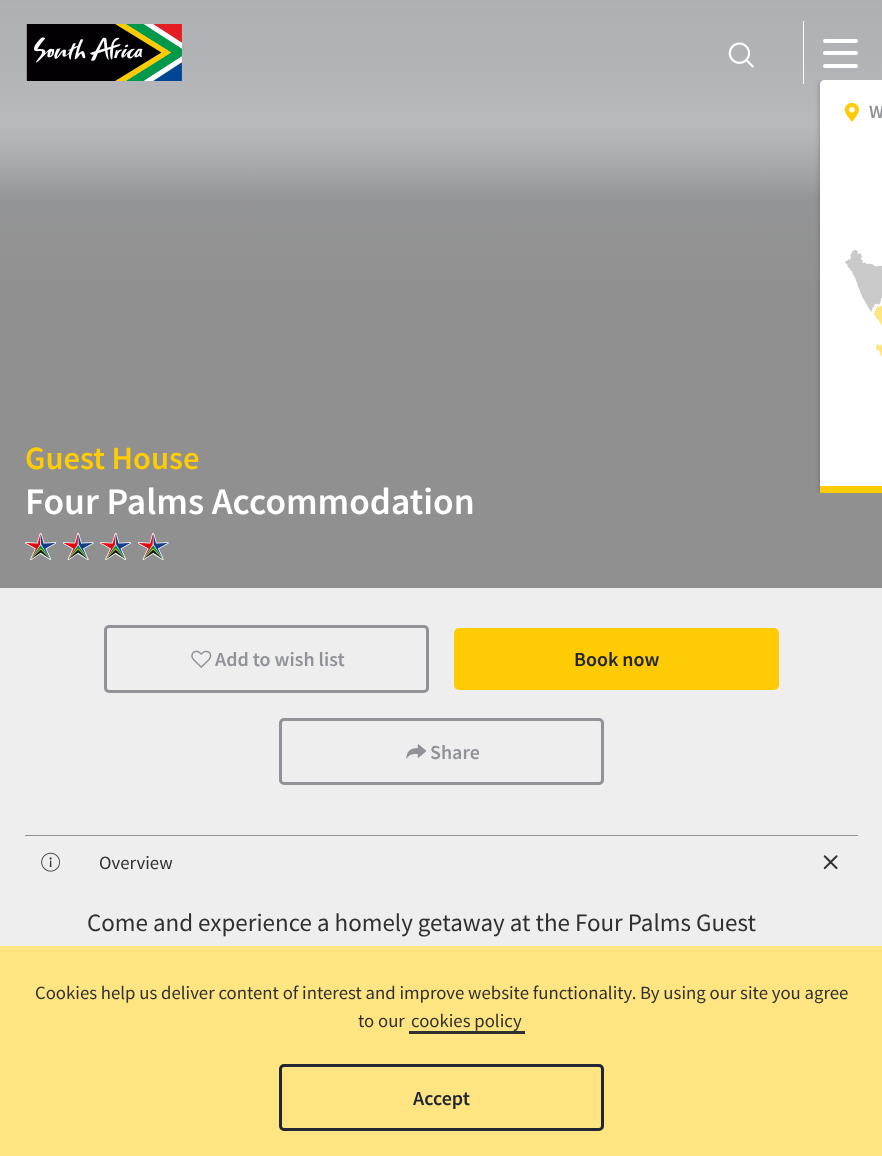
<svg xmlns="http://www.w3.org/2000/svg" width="882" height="1156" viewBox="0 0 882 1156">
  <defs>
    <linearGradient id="g1" gradientUnits="userSpaceOnUse" x1="441" y1="0" x2="441" y2="588"><stop offset="0" stop-color="#efefef"/><stop offset="0.1" stop-color="#d7d7d9"/><stop offset="0.21" stop-color="#d3d3d5"/><stop offset="0.34" stop-color="#909090"/><stop offset="1" stop-color="#909090"/></linearGradient>
    <linearGradient id="g2" gradientUnits="userSpaceOnUse" x1="441" y1="0" x2="441" y2="324"><stop offset="0" stop-color="#9d9fa3" stop-opacity="0.8"/><stop offset="1" stop-color="#9d9fa3" stop-opacity="0"/></linearGradient>
    <clipPath id="clip1"><path d="M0 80h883v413H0z"/></clipPath>
    <clipPath id="clip2"><path d="M820 80h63v344H820z"/></clipPath>
    <clipPath id="clip3"><path d="M820 424h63v69H820z"/></clipPath>
  </defs>
  <rect width="100%" height="100%" fill="#eee"/>
  <path d="M0 9h882v579H0z" fill="url(#g1)"/>
  <path d="M0 0h882v281H0z" fill="url(#g2)"/>
  <image x="26" y="24" width="156" height="57" href="img/1.png"/>
  <image x="728" y="42" width="26" height="26" href="img/2.png"/>
  <path d="M803 21h1v63H803z" fill="#fff"/>
  <rect x="823" y="39" width="35" height="4" rx="2" fill="#fff"/>
  <rect x="823" y="51" width="35" height="4" rx="2" fill="#fff"/>
  <rect x="823" y="64" width="35" height="4" rx="2" fill="#fff"/>
  <g clip-path="url(#clip1)">
    <rect x="821" y="81" width="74" height="329" rx="4" fill="#33333380" filter="blur(3px)"/>
  </g>
  <path d="M824 80H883V409H820V84C820 82 822 80 824 80Z" fill="#fff"/>
  <g clip-path="url(#clip1)">
    <rect x="821" y="440" width="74" height="54" rx="4" fill="#33333380" filter="blur(3px)"/>
  </g>
  <path d="M820 439H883V493H824C822 493 820 491 820 489Z" fill="#fff"/>
  <path d="M821 410h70v30H821z" fill="#33333380" filter="blur(3px)"/>
  <g clip-path="url(#clip2)">
    <path d="M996 236C795 236 633 398 633 598C633 799 795 961 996 961C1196 961 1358 799 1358 598C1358 398 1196 236 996 236ZM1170 411C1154 411 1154 436 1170 436C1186 436 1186 411 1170 411Z" fill="#fff" fill-rule="evenodd"/>
  </g>
  <g clip-path="url(#clip3)">
    <path d="M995-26C843-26 720 97 720 249C720 401 843 524 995 524C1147 524 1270 401 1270 249C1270 97 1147-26 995-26ZM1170 411C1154 411 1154 436 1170 436C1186 436 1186 411 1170 411Z" fill="#fff" fill-rule="evenodd"/>
  </g>
  <image x="844" y="102" width="15" height="20" href="img/3.png"/>
  <image x="845" y="249" width="37" height="109" href="img/4.png"/>
  <path d="M820 486H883V493H821C820.5 493 820 492.5 820 492Z" fill="#ffcb05"/>
  <image x="25" y="533" width="31" height="27" href="img/5.png"/>
  <image x="63" y="533" width="31" height="27" href="img/6.png"/>
  <image x="100" y="533" width="31" height="27" href="img/5.png"/>
  <image x="138" y="533" width="31" height="27" href="img/6.png"/>
  <rect x="105.5" y="626.5" width="322" height="65" rx="3.5" fill="none" stroke="#909298" stroke-width="3"/>
  <image x="191" y="650" width="21" height="18" href="img/7.png"/>
  <rect x="454" y="628" width="325" height="62" rx="5" fill="#ffcb05"/>
  <rect x="280.5" y="719.5" width="322" height="64" rx="3.5" fill="none" stroke="#909298" stroke-width="3"/>
  <image x="406" y="744" width="21" height="15" href="img/8.png"/>
  <path d="M25 835h833v1H25z" fill="#909298"/>
  <image x="41" y="852" width="19" height="20" href="img/9.png"/>
  <image x="823" y="855" width="15" height="15" href="img/10.png"/>
  <path d="M0 946h882v210H0z" fill="#ffe582"/>
  <path d="M409 1031h116v3H409z" fill="#303030"/>
  <rect x="280.5" y="1065.5" width="322" height="64" rx="3.5" fill="none" stroke="#222632" stroke-width="3"/>
  <text x="869" y="118" font-family="Source Sans Pro" font-size="18.75" font-weight="600" fill="#909298">W</text>
  <text x="25" y="469" font-family="Source Sans Pro" font-size="32.5" font-weight="600" fill="#ffcb05">Guest House</text>
  <text x="25" y="514" font-family="Source Sans Pro" font-size="37.5" font-weight="600" fill="#fff">Four Palms Accommodation</text>
  <text x="215" y="666" font-family="Source Sans Pro" font-size="20" font-weight="600" fill="#909298">Add to wish list</text>
  <text x="574" y="666" font-family="Source Sans Pro" font-size="20" font-weight="600" fill="#222632">Book now</text>
  <text x="430" y="759" font-family="Source Sans Pro" font-size="20" font-weight="600" fill="#909298">Share</text>
  <text x="99" y="869" font-family="Source Sans Pro" font-size="18.75" fill="#303030">Overview</text>
  <text x="87" y="931" font-family="Source Sans Pro" font-size="25" fill="#303030">Come and experience a homely getaway at the Four Palms Guest</text>
  <g font-family="Source Sans Pro" font-size="18.75" fill="#303030">
    <text x="35" y="999">Cookies help us deliver content of interest and improve website functionality. By using our site you agree</text>
    <text x="358" y="1027">to our</text>
    <text x="411" y="1027">cookies policy</text>
  </g>
  <text x="413" y="1105" font-family="Source Sans Pro" font-size="20" font-weight="600" fill="#222632">Accept</text>
</svg>
